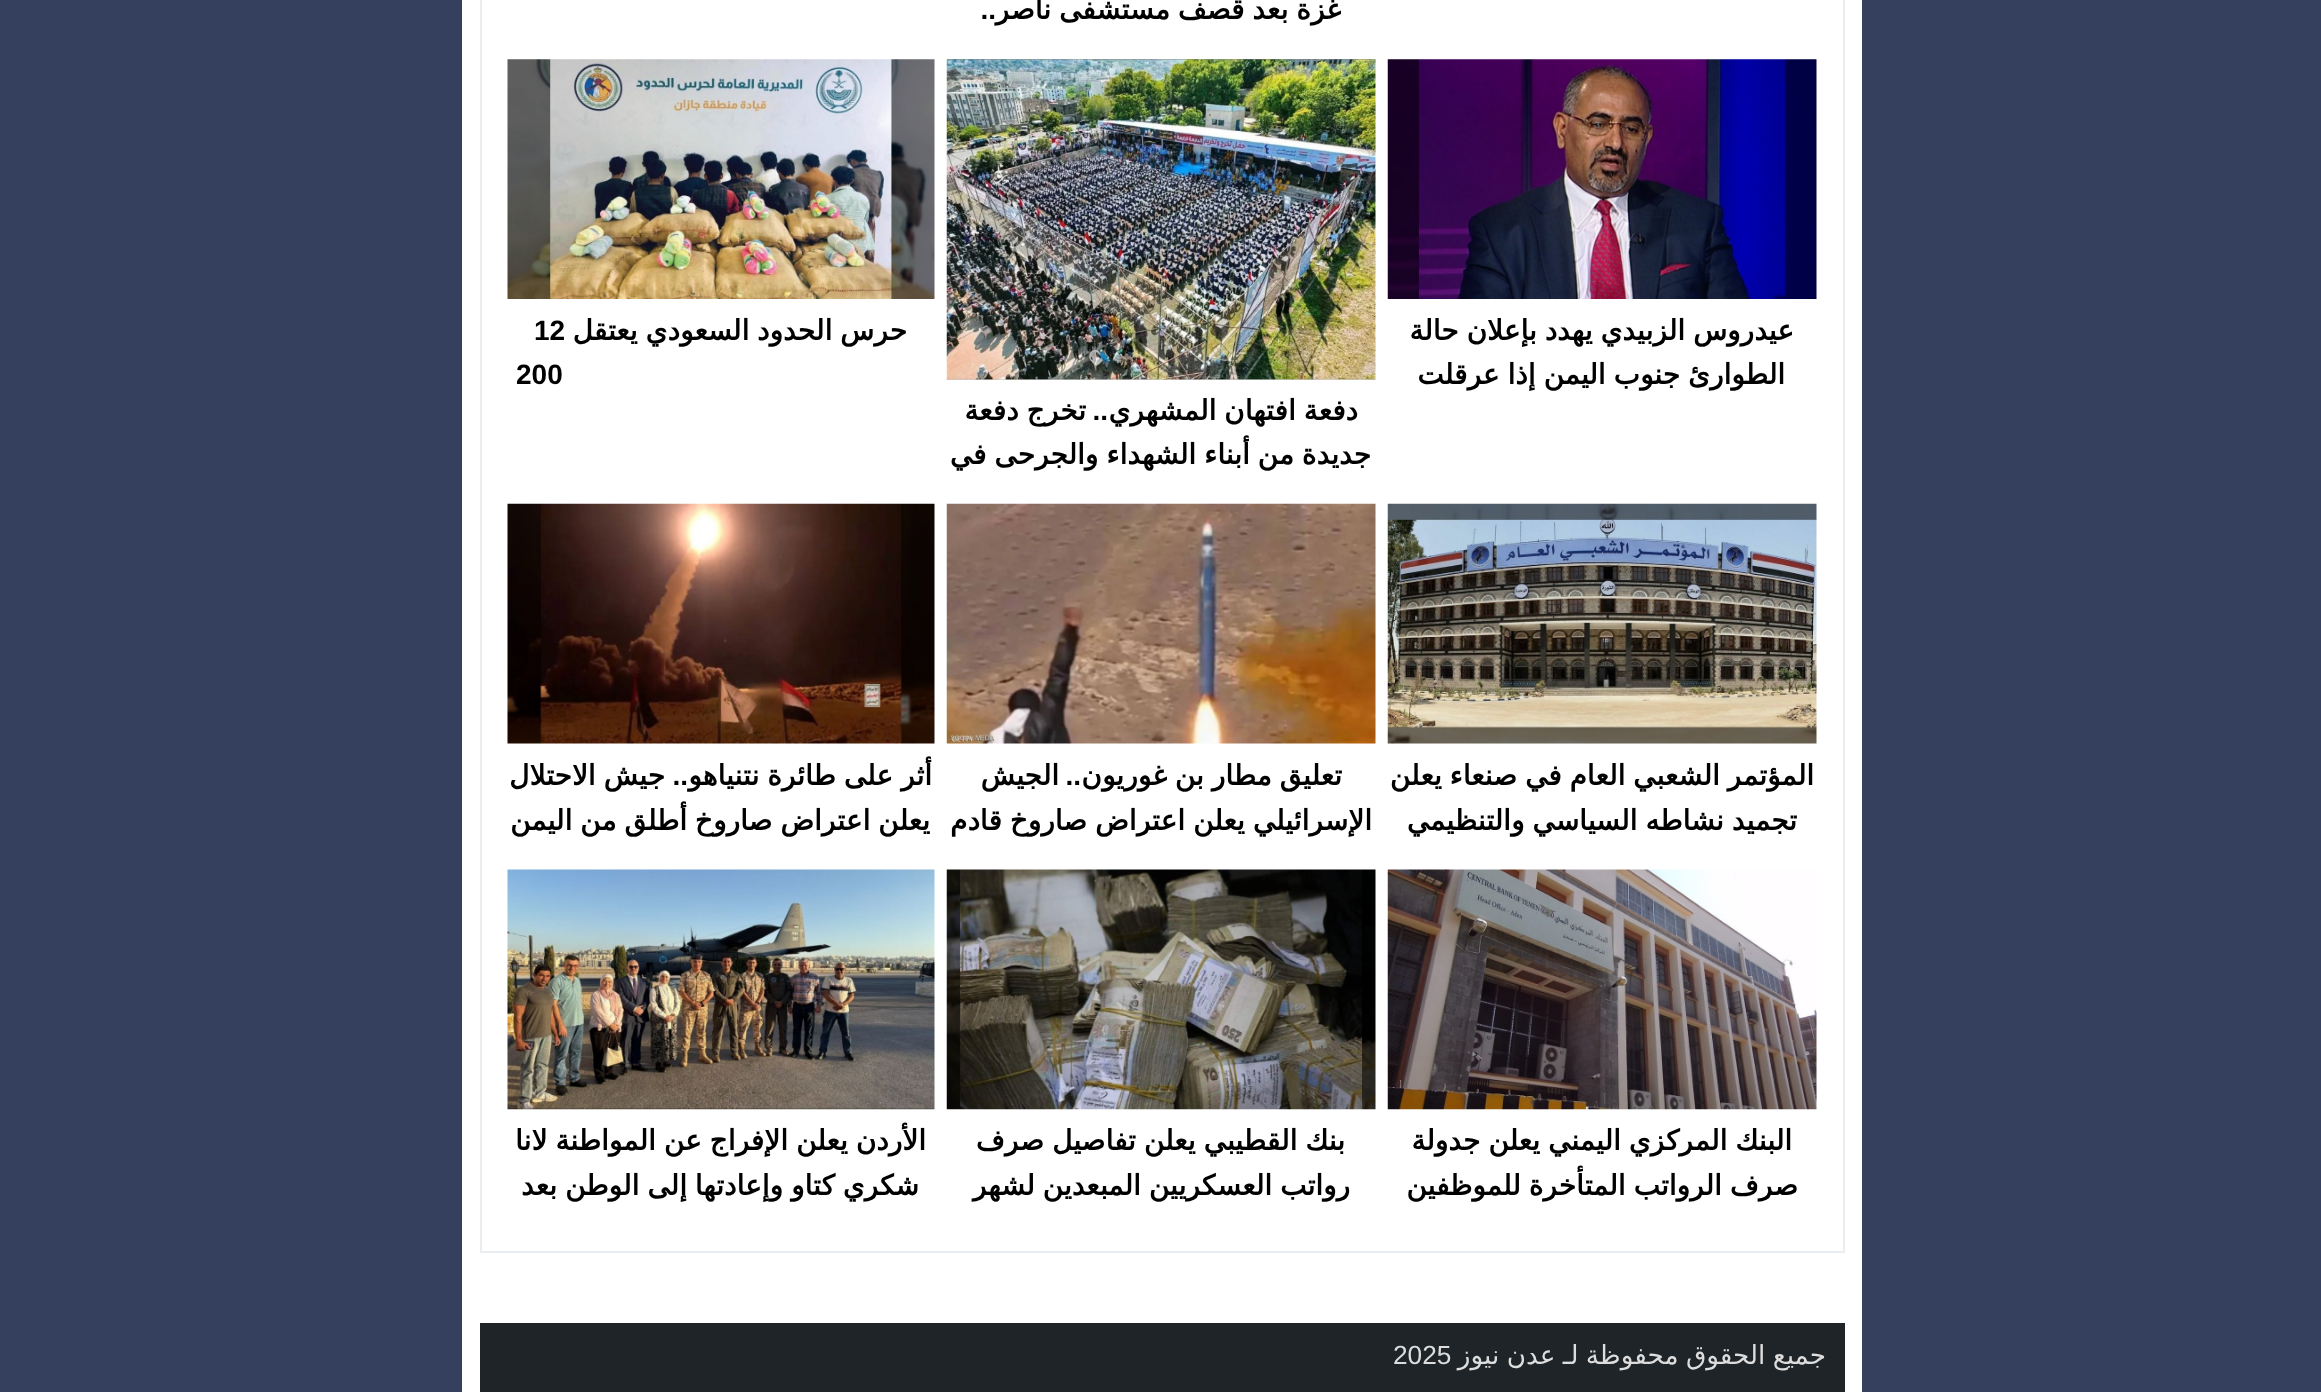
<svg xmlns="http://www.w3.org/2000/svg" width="2321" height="1392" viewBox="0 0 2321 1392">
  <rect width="100%" height="100%" fill="#35405e"/>
  <path d="M462 0h1400v1392H462z" fill="#fff"/>
  <path d="M481 -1h1363v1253H481z" fill="none" stroke="#e9edf0" stroke-width="2"/>
  <image x="1387" y="59" width="430" height="240" href="img/1.png"/>
  <image x="507" y="59" width="428" height="240" href="img/2.png"/>
  <image x="946" y="59" width="430" height="321" href="img/3.png"/>
  <image x="1387" y="503" width="430" height="241" href="img/4.png"/>
  <image x="946" y="503" width="430" height="241" href="img/5.png"/>
  <image x="507" y="503" width="428" height="241" href="img/6.png"/>
  <image x="1387" y="869" width="430" height="241" href="img/7.png"/>
  <image x="946" y="869" width="430" height="241" href="img/8.png"/>
  <image x="507" y="869" width="428" height="241" href="img/9.png"/>
  <path d="M480 1323h1365v69H480z" fill="#1e2428"/>
  <text x="1341" y="19" word-spacing="-1" font-family="DejaVu Sans" font-size="28" font-weight="bold" direction="rtl" fill="#000">غزة بعد قصف مستشفى ناصر</text>
  <text x="996" y="19" font-family="Liberation Sans" font-size="28" font-weight="bold" direction="rtl" fill="#000">..</text>
  <g font-family="DejaVu Sans" font-size="28" font-weight="bold" direction="rtl" fill="#000">
    <text x="1794" y="340" word-spacing="-1">عيدروس الزبيدي يهدد بإعلان حالة</text>
    <text x="1785" y="384" word-spacing="-1">الطوارئ جنوب اليمن إذا عرقلت</text>
    <text x="907" y="340" word-spacing="-1">حرس الحدود السعودي يعتقل</text>
  </g>
  <g font-family="Liberation Sans" font-size="28" font-weight="bold" fill="#000">
    <text x="534" y="340">12</text>
    <text x="516" y="384">200</text>
  </g>
  <text x="1358" y="420" word-spacing="-1" font-family="DejaVu Sans" font-size="28" font-weight="bold" direction="rtl" fill="#000">دفعة افتهان المشهري</text>
  <text x="1108" y="420" font-family="Liberation Sans" font-size="28" font-weight="bold" direction="rtl" fill="#000">..</text>
  <g font-family="DejaVu Sans" font-size="28" font-weight="bold" direction="rtl" fill="#000">
    <text x="1086" y="420" word-spacing="-1">تخرج دفعة</text>
    <text x="1371" y="464" word-spacing="-1">جديدة من أبناء الشهداء والجرحى في</text>
    <text x="1814" y="785" word-spacing="-1">المؤتمر الشعبي العام في صنعاء يعلن</text>
    <text x="1797" y="830" word-spacing="-1">تجميد نشاطه السياسي والتنظيمي</text>
    <text x="1342" y="785" word-spacing="-1">تعليق مطار بن غوريون</text>
  </g>
  <text x="1081" y="785" font-family="Liberation Sans" font-size="28" font-weight="bold" direction="rtl" fill="#000">..</text>
  <g font-family="DejaVu Sans" font-size="28" font-weight="bold" direction="rtl" fill="#000">
    <text x="1059" y="785">الجيش</text>
    <text x="1372" y="830" word-spacing="-1">الإسرائيلي يعلن اعتراض صاروخ قادم</text>
    <text x="932" y="785" word-spacing="-1">أثر على طائرة نتنياهو</text>
  </g>
  <text x="688" y="785" font-family="Liberation Sans" font-size="28" font-weight="bold" direction="rtl" fill="#000">..</text>
  <g font-family="DejaVu Sans" font-size="28" font-weight="bold" direction="rtl" fill="#000">
    <text x="665" y="785" word-spacing="-1">جيش الاحتلال</text>
    <text x="930" y="830" word-spacing="-1">يعلن اعتراض صاروخ أطلق من اليمن</text>
    <text x="1792" y="1150" word-spacing="-1">البنك المركزي اليمني يعلن جدولة</text>
    <text x="1798" y="1195" word-spacing="-1">صرف الرواتب المتأخرة للموظفين</text>
    <text x="1345" y="1150" word-spacing="-1">بنك القطيبي يعلن تفاصيل صرف</text>
    <text x="1350" y="1195" word-spacing="-1">رواتب العسكريين المبعدين لشهر</text>
    <text x="926" y="1150" word-spacing="-1">الأردن يعلن الإفراج عن المواطنة لانا</text>
    <text x="919" y="1195" word-spacing="-1">شكري كتاو وإعادتها إلى الوطن بعد</text>
  </g>
  <text x="1826" y="1364" word-spacing="-1" font-family="DejaVu Sans" font-size="26.25" direction="rtl" fill="#ddd">جميع الحقوق محفوظة لـ عدن نيوز</text>
  <text x="1393" y="1364" font-family="Liberation Sans" font-size="26.25" fill="#ddd">2025</text>
</svg>
